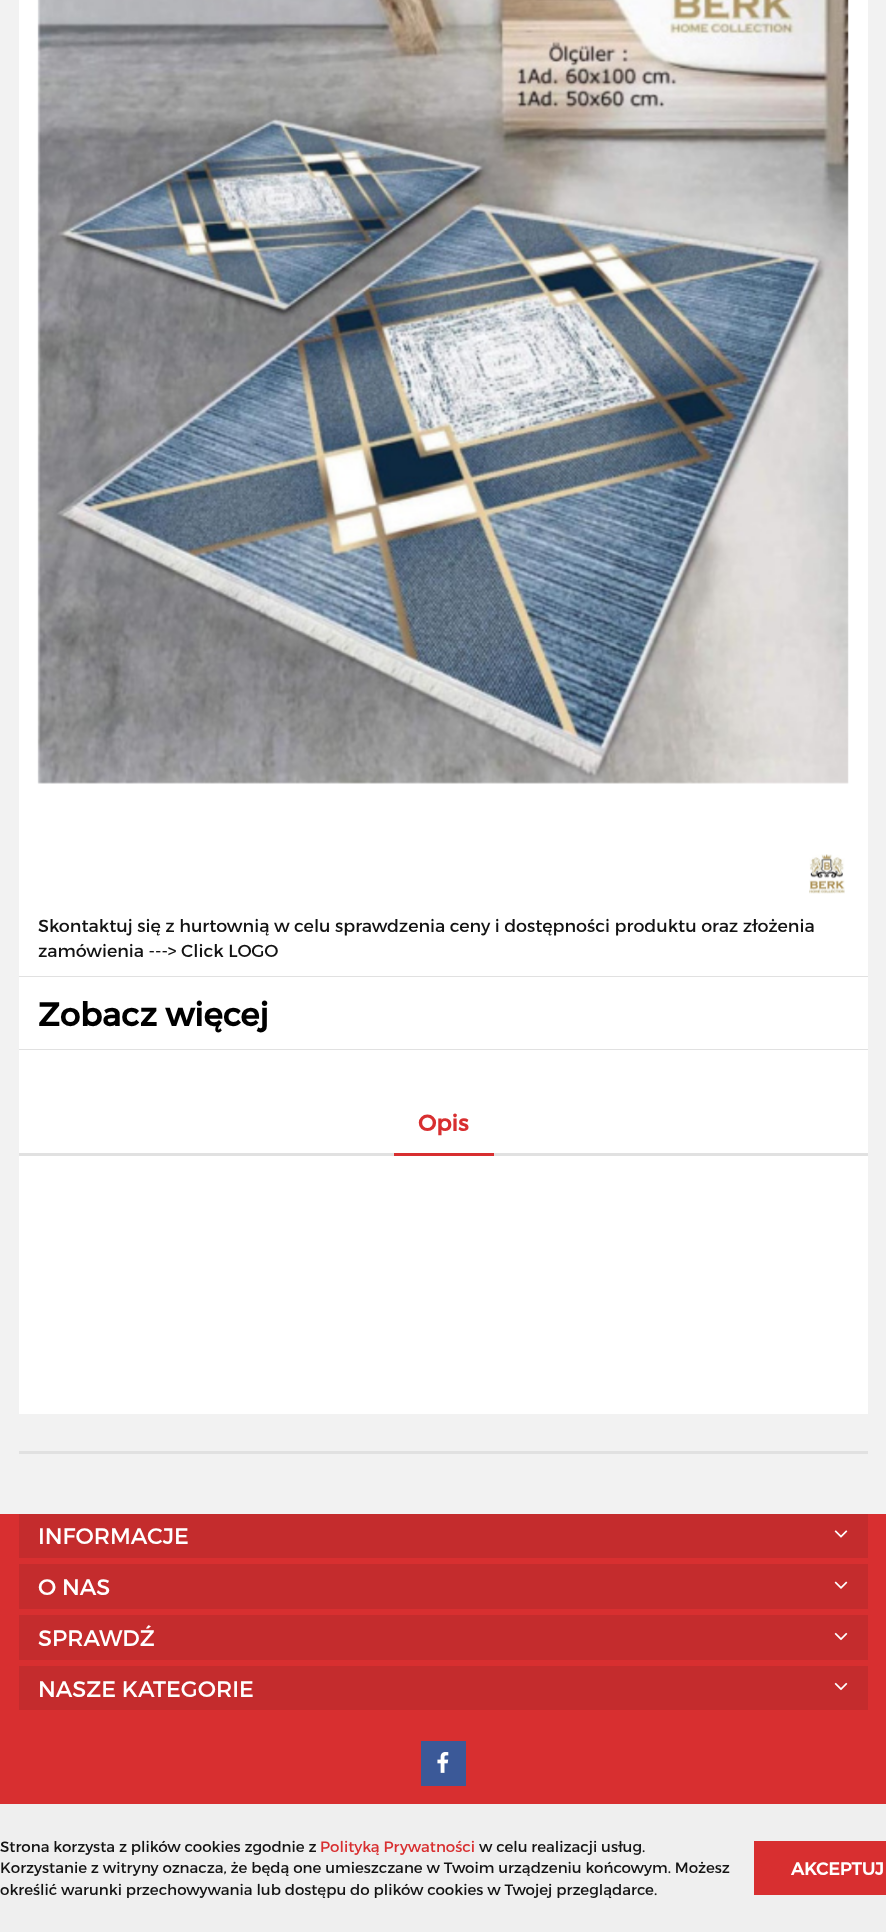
<svg xmlns="http://www.w3.org/2000/svg" width="886" height="1932" viewBox="0 0 886 1932">
  <rect width="100%" height="100%" fill="#f2f2f2"/>
  <path d="M19 0h849v1414H19z" fill="#fff"/>
  <image x="37" y="0" width="812" height="784" href="img/1.png"/>
  <path d="M19 976h849v1H19z" fill="#e1e1e1"/>
  <image x="809" y="854" width="36" height="40" href="img/2.png"/>
  <path d="M19 1049h849v1H19z" fill="#e1e1e1"/>
  <path d="M19 1153h849v3H19z" fill="#e1e1e1"/>
  <path d="M394 1153h100v3H394z" fill="#d82f30"/>
  <path d="M19 1451h849v3H19z" fill="#e1e1e1"/>
  <path d="M0 1514h886v290H0z" fill="#d82f30"/>
  <path d="M19 1514h849v44H19z" fill="#c42c2d"/>
  <image x="834" y="1530" width="14" height="8" href="img/3.png"/>
  <path d="M19 1564h849v45H19z" fill="#c42c2d"/>
  <image x="834" y="1581" width="14" height="8" href="img/4.png"/>
  <path d="M19 1615h849v45H19z" fill="#c42c2d"/>
  <image x="834" y="1632" width="14" height="9" href="img/5.png"/>
  <path d="M19 1666h849v44H19z" fill="#c42c2d"/>
  <image x="834" y="1682" width="14" height="9" href="img/5.png"/>
  <path d="M421 1741h45v45H421z" fill="#3b5998"/>
  <image x="437" y="1752" width="12" height="21" href="img/6.png"/>
  <path d="M0 1804h886v128H0z" fill="#efefef"/>
  <path d="M754 1841h132v54H754z" fill="#d82f30"/>
  <g font-family="Montserrat" font-size="17.5" fill="#131313">
    <text x="38" y="932">Skontaktuj się z hurtownią w celu sprawdzenia ceny i dostępności produktu oraz złożenia</text>
    <text x="38" y="957">zamówienia ---&gt; Click LOGO</text>
  </g>
  <text x="38" y="1026" font-family="Montserrat" font-size="32.5" font-weight="bold" fill="#000">Zobacz więcej</text>
  <text x="418" y="1131" font-family="Montserrat" font-size="22.5" font-weight="bold" fill="#d82f30">Opis</text>
  <g font-family="Montserrat" font-size="22.5" fill="#fff">
    <text x="38" y="1544">INFORMACJE</text>
    <text x="38" y="1595">O NAS</text>
    <text x="38" y="1646">SPRAWDŹ</text>
    <text x="38" y="1697">NASZE KATEGORIE</text>
  </g>
  <text x="0" y="1852" font-family="Montserrat" font-size="15" fill="#131313">Strona korzysta z plików cookies zgodnie z</text>
  <text x="320" y="1852" font-family="Montserrat" font-size="15" fill="#d82f30">Polityką Prywatności</text>
  <g font-family="Montserrat" font-size="15" fill="#131313">
    <text x="479" y="1852">w celu realizacji usług.</text>
    <text x="0" y="1873">Korzystanie z witryny oznacza, że będą one umieszczane w Twoim urządzeniu końcowym. Możesz</text>
    <text x="0" y="1895">określić warunki przechowywania lub dostępu do plików cookies w Twojej przeglądarce.</text>
  </g>
  <text x="791" y="1875" font-family="Montserrat" font-size="17.5" font-weight="bold" fill="#fff">AKCEPTUJ</text>
</svg>
